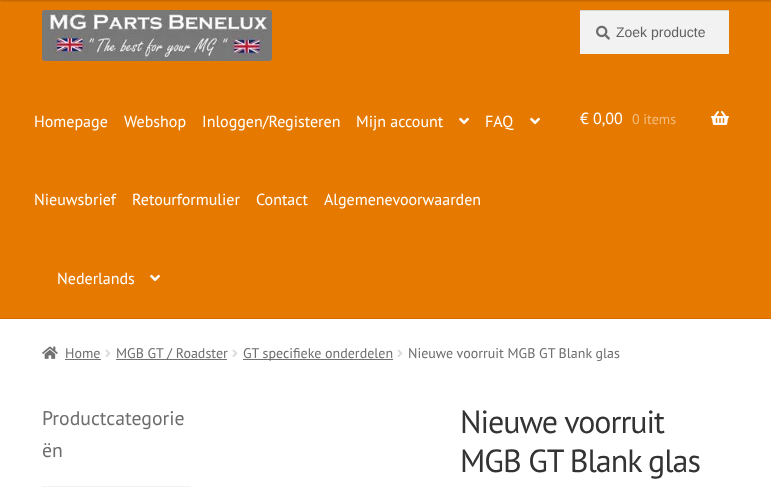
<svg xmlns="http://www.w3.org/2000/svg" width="771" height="499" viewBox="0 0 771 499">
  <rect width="100%" height="100%" fill="#fff"/>
  <path d="M0 0h771v318H0z" fill="#e67a00"/>
  <path d="M0 -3h771v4H0z" fill="#00000033" filter="blur(1px)"/>
  <path d="M0 318h771v1H0z" fill="#d76b00"/>
  <image x="42" y="10" width="230" height="51" href="img/1.png"/>
  <path d="M580 11h149v43H580z" fill="#f2f2f2"/>
  <image x="596" y="25" width="14" height="15" href="img/2.png"/>
  <path d="M580 10h149v1H580z" fill="#d4d4d4"/>
  <image x="459" y="117" width="10" height="8" href="img/3.png"/>
  <image x="530" y="117" width="10" height="8" href="img/3.png"/>
  <image x="150" y="274" width="10" height="8" href="img/3.png"/>
  <image x="711" y="111" width="18" height="14" href="img/4.png"/>
  <image x="42" y="346" width="16" height="13" href="img/5.png"/>
  <path d="M65 359h36v1H65z" fill="#727272"/>
  <image x="105" y="349" width="6" height="8" href="img/6.png"/>
  <path d="M116 359h111v1H116z" fill="#727272"/>
  <image x="232" y="349" width="6" height="8" href="img/6.png"/>
  <path d="M243 359h150v1H243z" fill="#727272"/>
  <image x="397" y="349" width="6" height="8" href="img/6.png"/>
  <path d="M42 486h149v1H42z" fill="#f2f2f2"/>
  <text x="616" y="37" font-family="Liberation Sans" font-size="14" fill="#616161">Zoek producte</text>
  <g font-family="PT Sans" font-size="16" fill="#fff">
    <text x="34" y="127">Homepage</text>
    <text x="124" y="127">Webshop</text>
    <text x="202" y="127">Inloggen/Registeren</text>
    <text x="356" y="127">Mijn account</text>
    <text x="485" y="127">FAQ</text>
    <text x="34" y="205">Nieuwsbrief</text>
    <text x="132" y="205">Retourformulier</text>
    <text x="256" y="205">Contact</text>
    <text x="324" y="205">Algemenevoorwaarden</text>
    <text x="57" y="284">Nederlands</text>
    <text x="580" y="124">€ 0,00</text>
  </g>
  <text x="632" y="124" font-family="PT Sans" font-size="14" fill="#f3bd80">0 items</text>
  <g font-family="PT Sans" font-size="14" fill="#6d6d6d">
    <text x="65" y="358">Home</text>
    <text x="116" y="358">MGB GT / Roadster</text>
    <text x="243" y="358">GT specifieke onderdelen</text>
    <text x="408" y="358">Nieuwe voorruit MGB GT Blank glas</text>
  </g>
  <g font-family="PT Sans" font-size="19.75" fill="#6d6d6d">
    <text x="42" y="425">Productcategorie</text>
    <text x="42" y="457">ën</text>
  </g>
  <g font-family="PT Sans" font-size="32" letter-spacing="-1" fill="#333">
    <text x="460" y="433">Nieuwe voorruit</text>
    <text x="460" y="472">MGB GT Blank glas</text>
  </g>
</svg>
